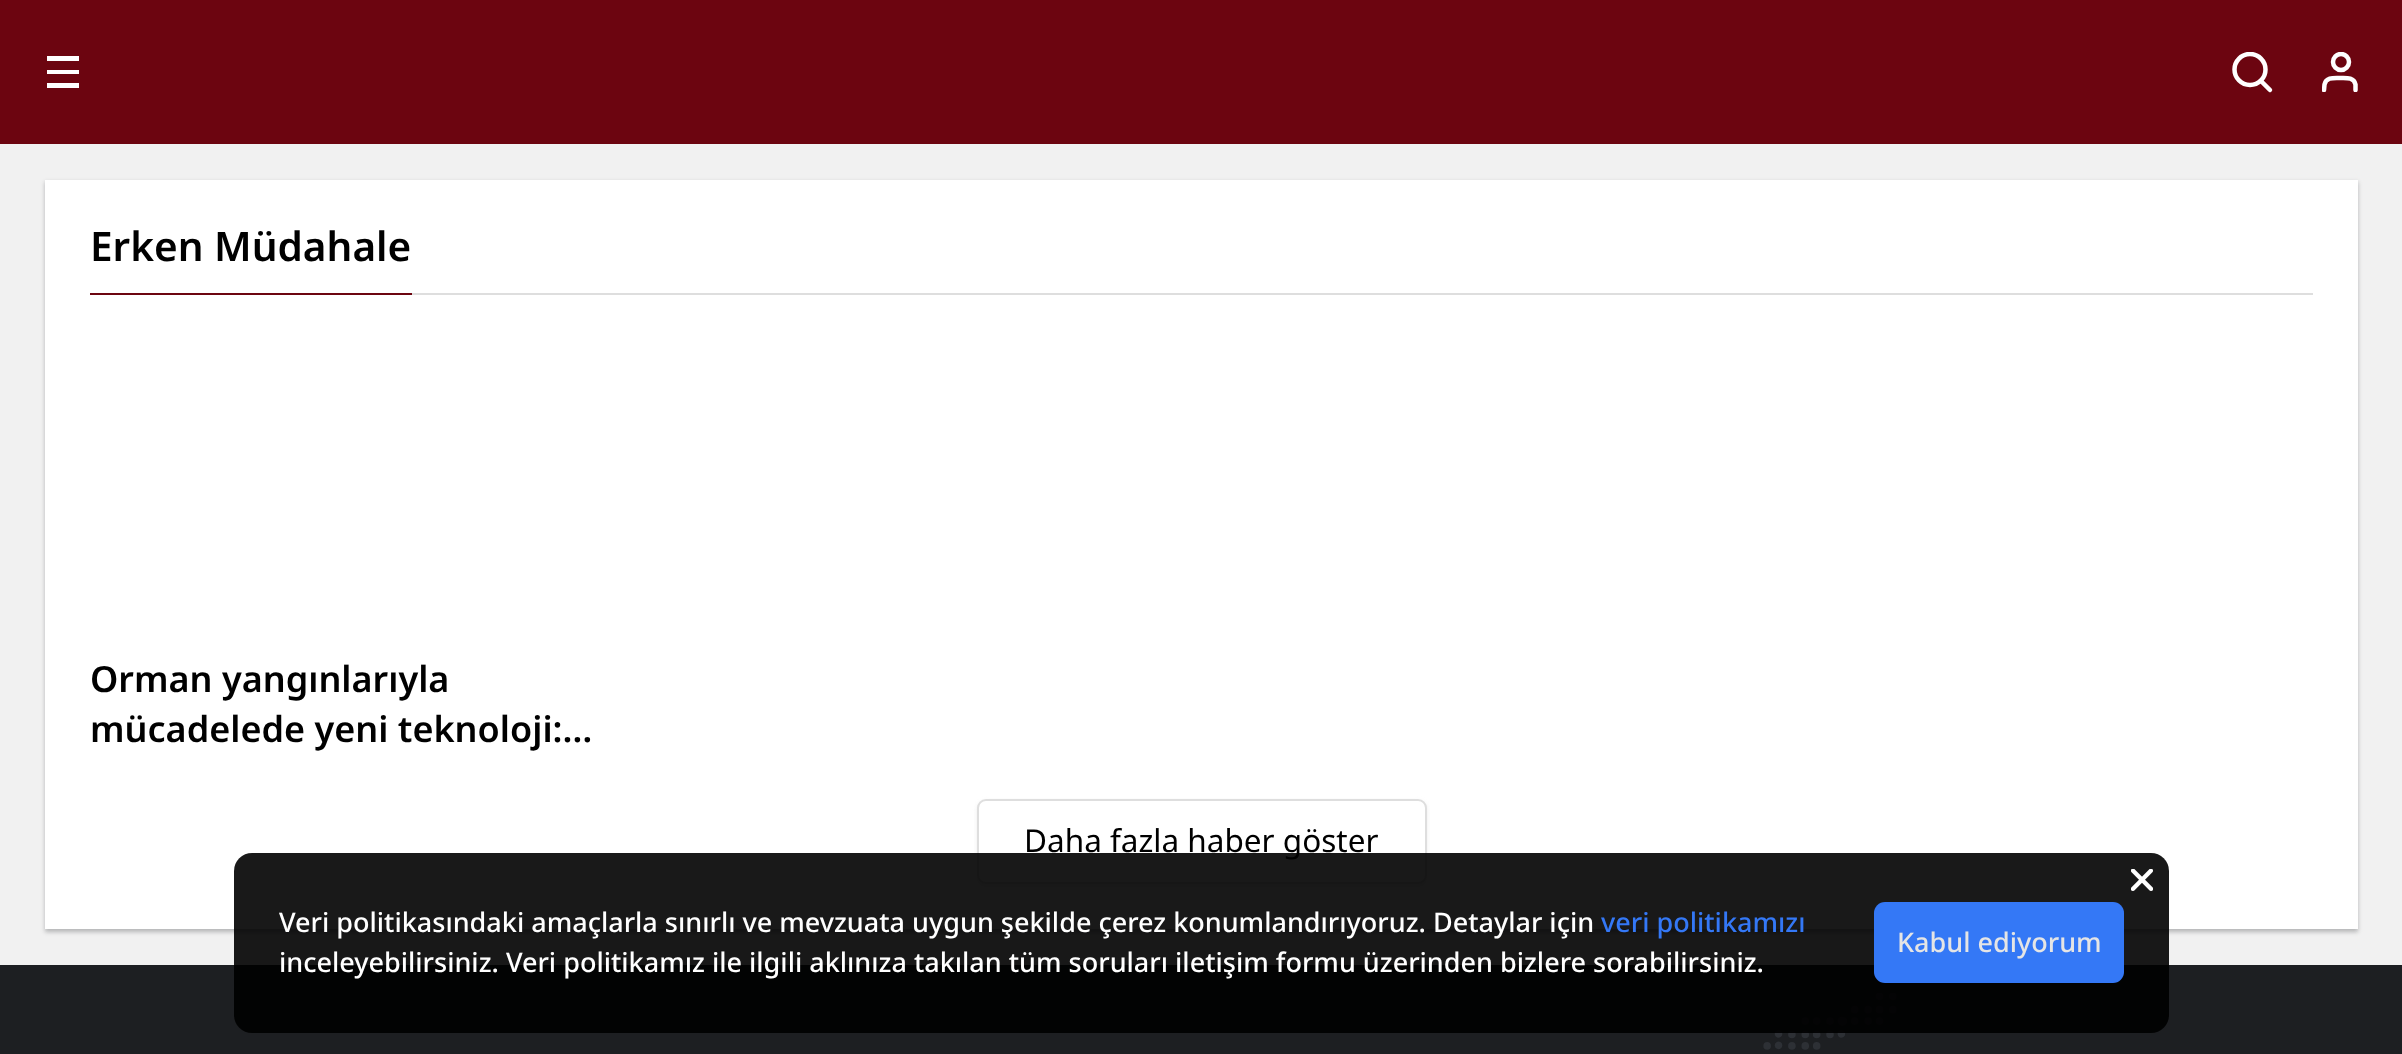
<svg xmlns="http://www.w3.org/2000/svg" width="2402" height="1054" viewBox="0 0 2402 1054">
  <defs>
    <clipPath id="clip1"><path d="M2232 52h41v40H2232z"/></clipPath>
    <clipPath id="clip2"><path d="M2322 52h36v40H2322z"/></clipPath>
  </defs>
  <rect width="100%" height="100%" fill="#f1f1f1"/>
  <path d="M0 0h2402v144H0z" fill="#6c0510"/>
  <path d="M47 70h32v4H47z" fill="#fff"/>
  <path d="M47 56h32v5H47z" fill="#fff"/>
  <path d="M47 83h32v5H47z" fill="#fff"/>
  <g clip-path="url(#clip1)">
    <circle cx="2250" cy="69.5" r="15.5" fill="none" stroke="#fff" stroke-width="4.5"/>
  </g>
  <path d="M2270 90L2261.5 81.5" fill="none" stroke="#fff" stroke-width="4.5" stroke-linecap="round" stroke-linejoin="round"/>
  <g clip-path="url(#clip2)">
    <path d="M2355.5 90V84.5C2354 77 2346 78 2340 78C2334 78 2326 77 2324.5 84.5L2324 90" fill="none" stroke="#fff" stroke-width="4.5" stroke-linecap="round" stroke-linejoin="round"/>
    <circle cx="2341" cy="62" r="8" fill="none" stroke="#fff" stroke-width="4.5"/>
  </g>
  <path d="M45 182h2313v750H45z" fill="#11151945" filter="blur(2px)"/>
  <path d="M45 180h2313v749H45z" fill="#fff"/>
  <path d="M412 293h1901v2H412z" fill="#dedede"/>
  <path d="M90 293h322v2H90z" fill="#6c0510"/>
  <rect x="977" y="801" width="450" height="86" rx="9" fill="#dedede96" filter="blur(2px)"/>
  <rect x="978" y="800" width="448" height="83" rx="8" fill="#fff" stroke="#dedede" stroke-width="2"/>
  <path d="M0 965h2402v89H0z" fill="#1d1f22"/>
  <image x="1763" y="993" width="134" height="57" href="img/2.png"/>
  <text x="90" y="261" font-family="Noto Sans" font-size="40.5" font-weight="600" fill="#000">Erken Müdahale</text>
  <g font-family="Noto Sans" font-size="36" font-weight="600" fill="#000">
    <text x="90" y="692">Orman yangınlarıyla</text>
    <text x="90" y="742">mücadelede yeni teknoloji:…</text>
  </g>
  <text x="1024" y="852" font-family="Noto Sans" font-size="31.5" fill="#000">Daha fazla haber göster</text>
  <rect x="234" y="853" width="1935" height="180" rx="18" fill="#000000e6"/>
  <image x="2131" y="869" width="22" height="22" href="img/1.png"/>
  <text x="279" y="932" font-family="Noto Sans" font-size="27" font-weight="500" fill="#fff">Veri politikasındaki amaçlarla sınırlı ve mevzuata uygun şekilde çerez konumlandırıyoruz. Detaylar için</text>
  <text x="1601" y="932" font-family="Noto Sans" font-size="27" font-weight="500" fill="#3478f6">veri politikamızı</text>
  <text x="279" y="972" font-family="Noto Sans" font-size="27" font-weight="500" fill="#fff">inceleyebilirsiniz. Veri politikamız ile ilgili aklınıza takılan tüm soruları iletişim formu üzerinden bizlere sorabilirsiniz.</text>
  <rect x="1874" y="902" width="250" height="81" rx="11" fill="#3478f6"/>
  <text x="1897" y="952" font-family="Noto Sans" font-size="27" font-weight="500" fill="#e5e5e5">Kabul ediyorum</text>
</svg>
